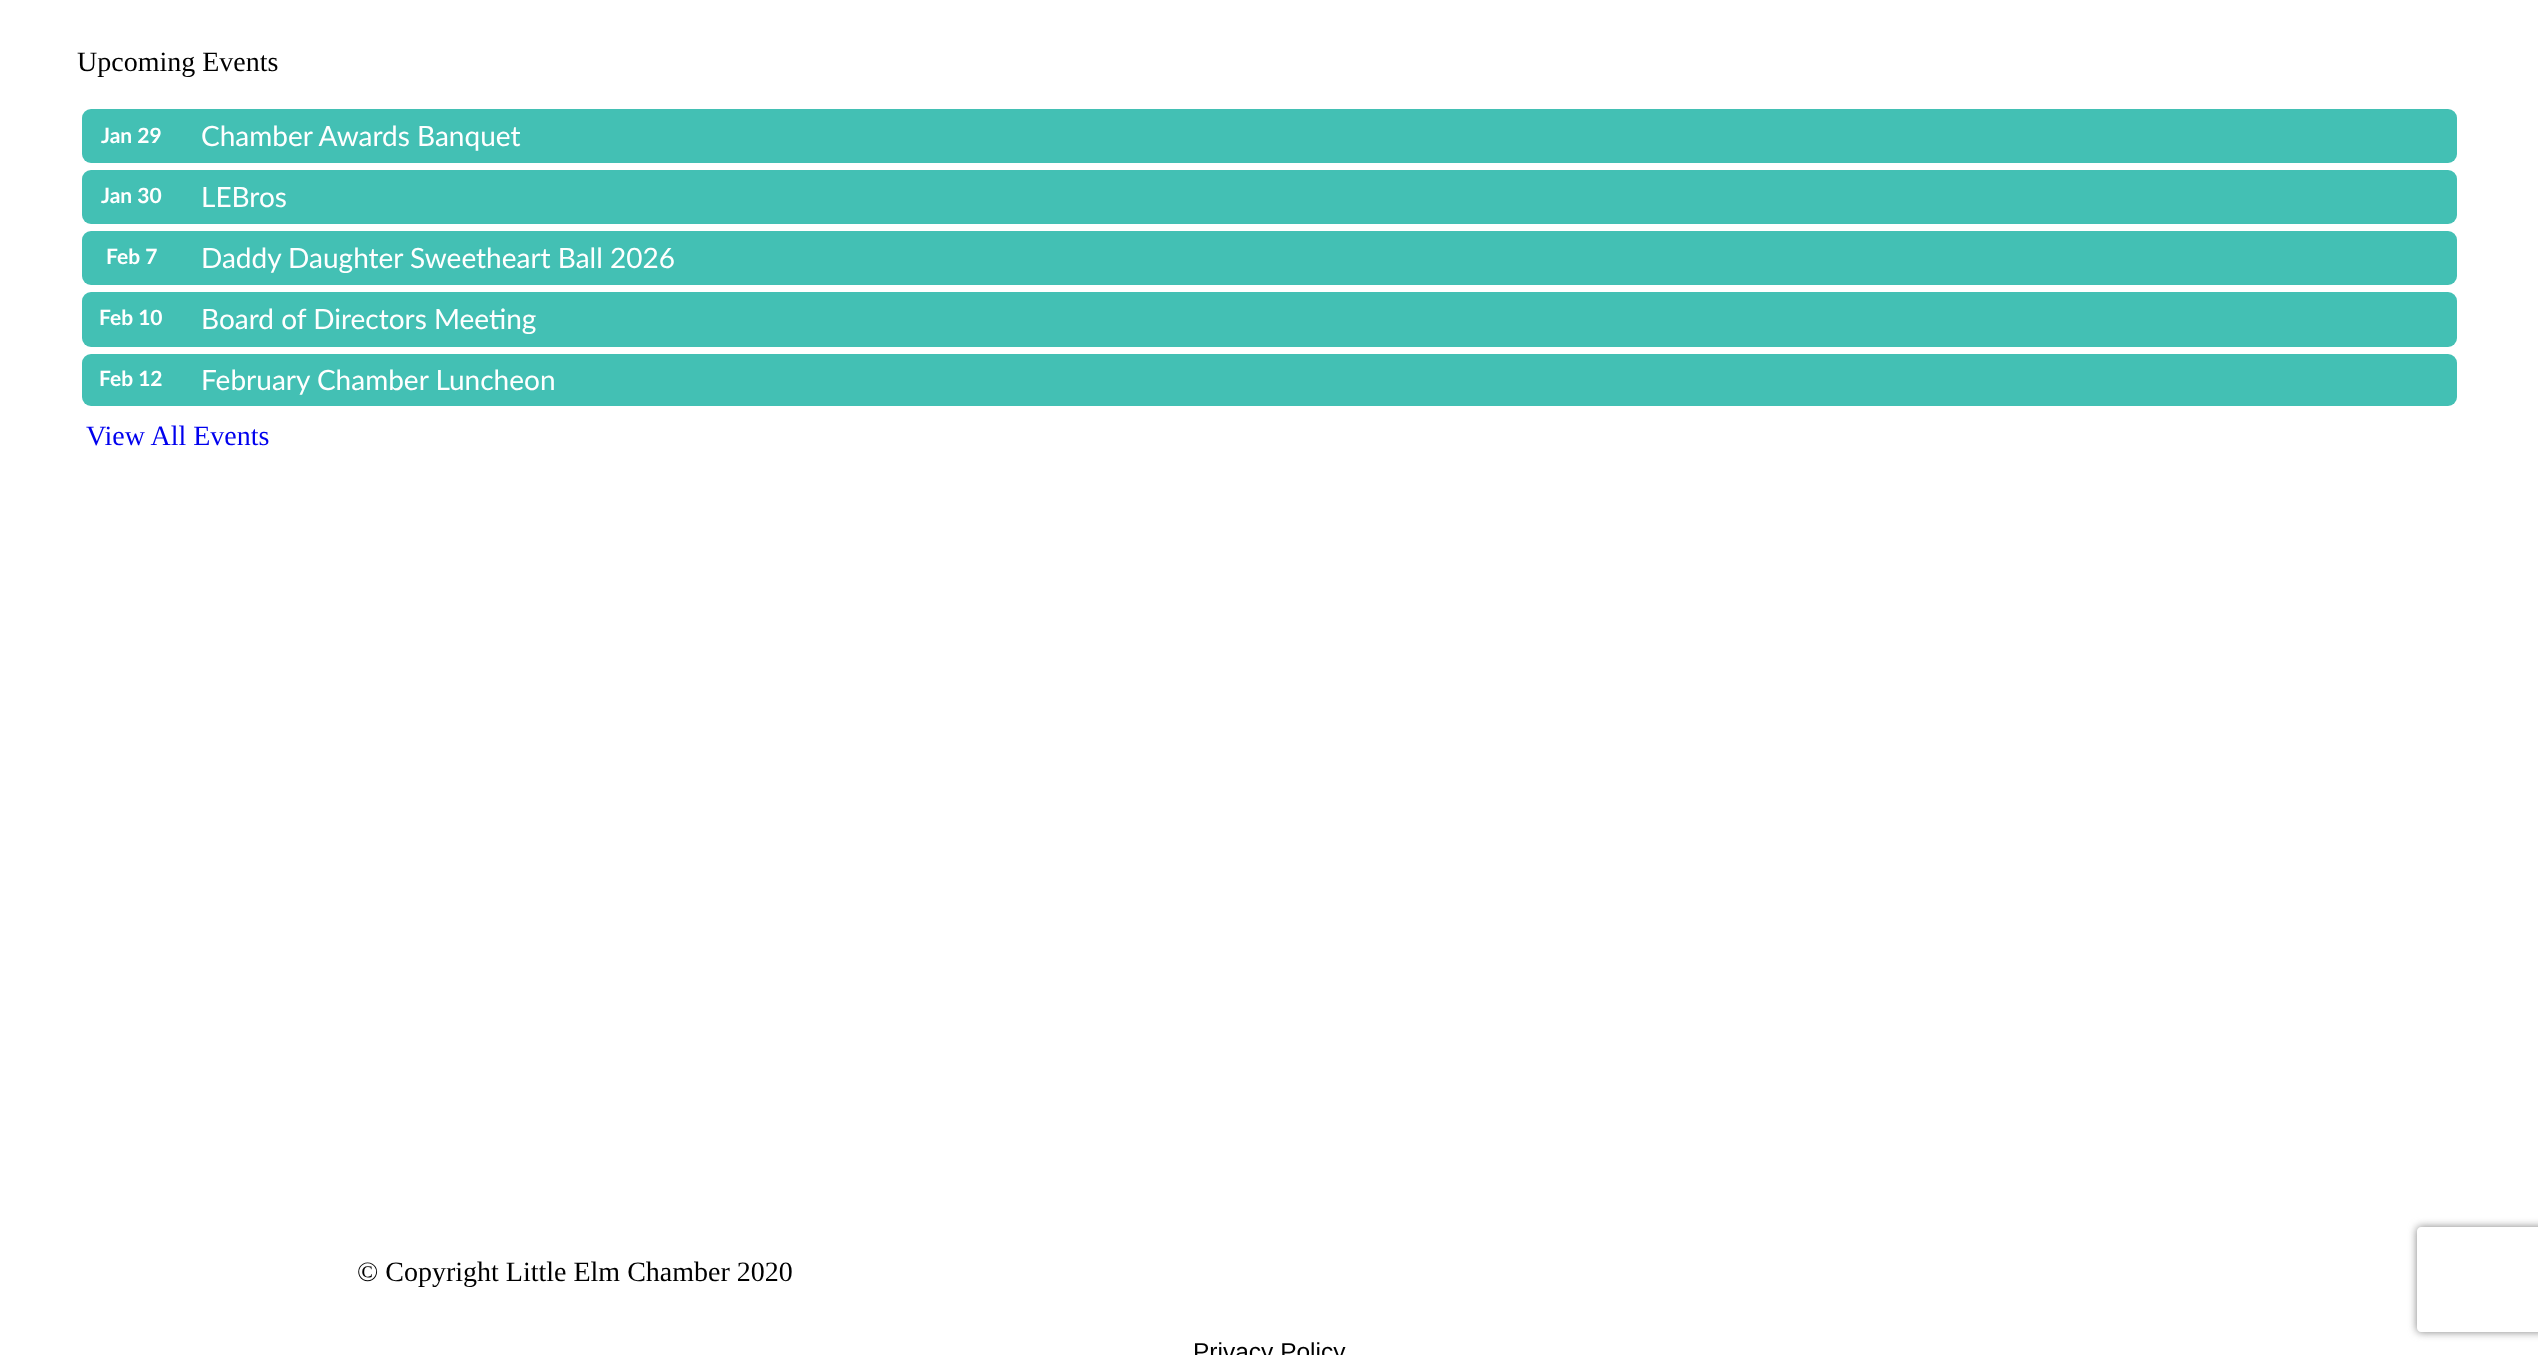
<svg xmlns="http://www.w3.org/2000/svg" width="2538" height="1355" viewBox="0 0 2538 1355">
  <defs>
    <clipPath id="clip1"><path d="M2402 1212H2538V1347H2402ZM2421 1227H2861C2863 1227 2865 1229 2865 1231V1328C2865 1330 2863 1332 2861 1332H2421C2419 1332 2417 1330 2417 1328V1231C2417 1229 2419 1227 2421 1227Z" clip-rule="evenodd"/></clipPath>
  </defs>
  <rect width="100%" height="100%" fill="#fff"/>
  <rect x="82" y="109" width="2375" height="54" rx="9" fill="#43c0b4"/>
  <rect x="82" y="170" width="2375" height="54" rx="9" fill="#43c0b4"/>
  <rect x="82" y="231" width="2375" height="54" rx="9" fill="#43c0b4"/>
  <rect x="82" y="292" width="2375" height="55" rx="9" fill="#43c0b4"/>
  <rect x="82" y="354" width="2375" height="52" rx="9" fill="#43c0b4"/>
  <g clip-path="url(#clip1)">
    <rect x="2417" y="1227" width="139" height="105" rx="4" fill="#808080" filter="blur(4.5px)"/>
  </g>
  <text x="77" y="71" font-family="Liberation Serif" font-size="28" fill="#000">Upcoming Events</text>
  <text x="101" y="143" font-family="Lato" font-size="21" font-weight="bold" fill="#fff">Jan 29</text>
  <text x="201" y="146" font-family="Lato" font-size="28" fill="#fff">Chamber Awards Banquet</text>
  <text x="101" y="203" font-family="Lato" font-size="21" font-weight="bold" fill="#fff">Jan 30</text>
  <text x="201" y="207" font-family="Lato" font-size="28" fill="#fff">LEBros</text>
  <text x="106" y="264" font-family="Lato" font-size="21" font-weight="bold" fill="#fff">Feb 7</text>
  <text x="201" y="268" font-family="Lato" font-size="28" fill="#fff">Daddy Daughter Sweetheart Ball 2026</text>
  <text x="99" y="325" font-family="Lato" font-size="21" font-weight="bold" fill="#fff">Feb 10</text>
  <text x="201" y="329" font-family="Lato" font-size="28" fill="#fff">Board of Directors Meeting</text>
  <text x="99" y="386" font-family="Lato" font-size="21" font-weight="bold" fill="#fff">Feb 12</text>
  <text x="201" y="390" font-family="Lato" font-size="28" fill="#fff">February Chamber Luncheon</text>
  <text x="86" y="445" font-family="Liberation Serif" font-size="28" fill="#00e">View All Events</text>
  <text x="357" y="1281" font-family="Liberation Serif" font-size="28" fill="#000">© Copyright Little Elm Chamber 2020</text>
  <text x="1193" y="1360" font-family="Liberation Sans" font-size="24.5" fill="#000">Privacy Policy</text>
</svg>
